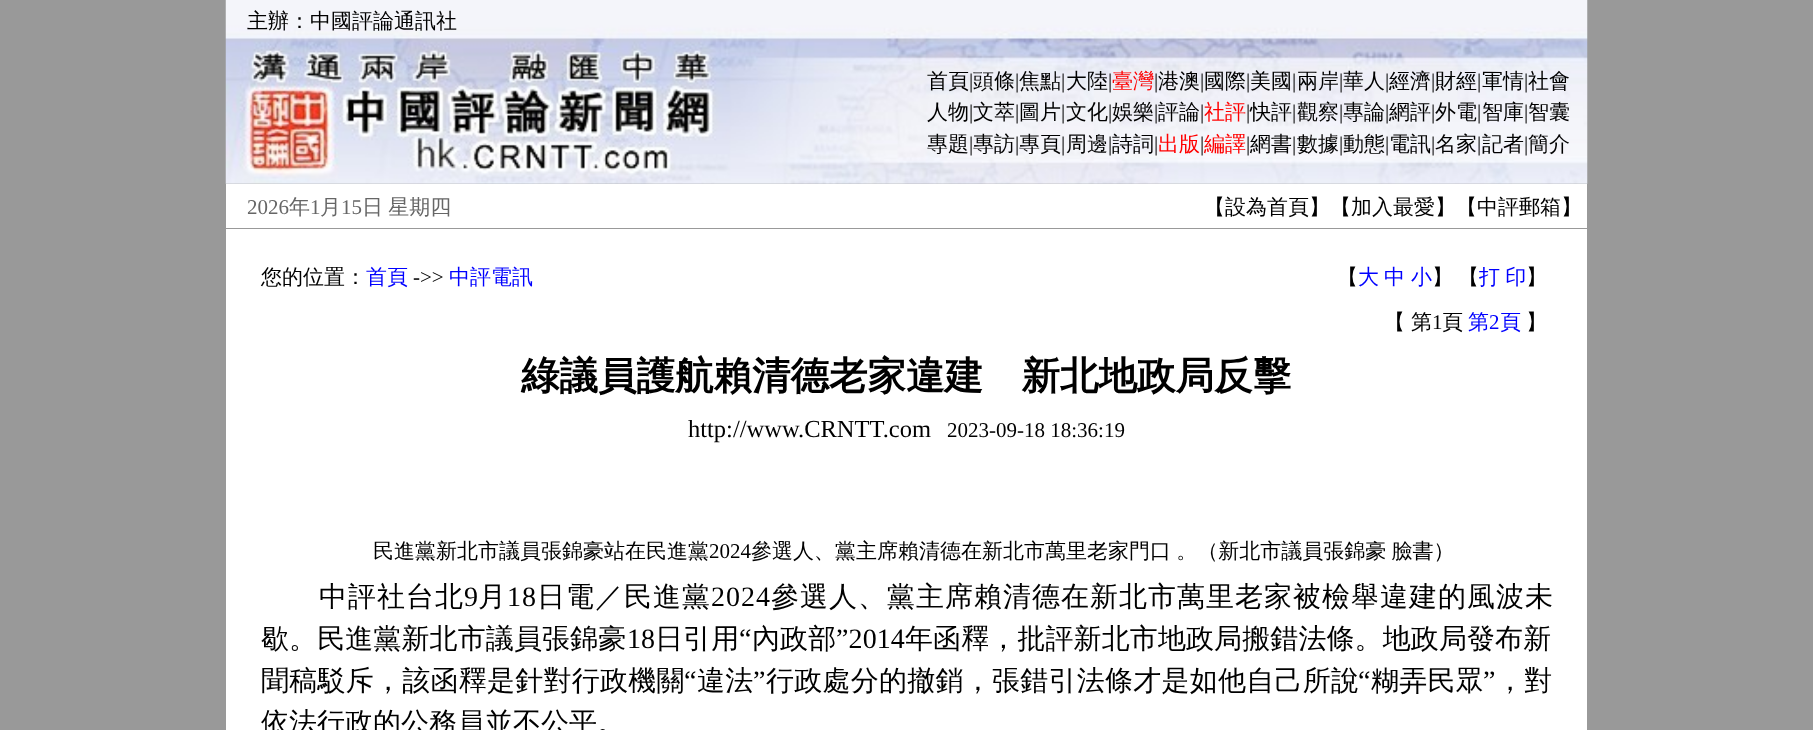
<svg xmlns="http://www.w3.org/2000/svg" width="1813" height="730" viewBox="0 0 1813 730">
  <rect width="100%" height="100%" fill="#999"/>
  <image x="225" y="0" width="1363" height="184" href="img/1.png"/>
  <path d="M226 184h1361v44H226z" fill="#fff"/>
  <path d="M226 229h1361v501H226z" fill="#fff"/>
  <g font-family="WenQuanYi Zen Hei" font-size="21" font-weight="500" fill="#000">
    <text x="247" y="28">主辦：中國評論通訊社</text>
    <text x="927" y="88">首頁</text>
  </g>
  <text x="969" y="88" font-family="Liberation Serif" font-size="21" fill="#000">|</text>
  <text x="973" y="88" font-family="WenQuanYi Zen Hei" font-size="21" font-weight="500" fill="#000">頭條</text>
  <text x="1015" y="88" font-family="Liberation Serif" font-size="21" fill="#000">|</text>
  <text x="1019" y="88" font-family="WenQuanYi Zen Hei" font-size="21" font-weight="500" fill="#000">焦點</text>
  <text x="1061" y="88" font-family="Liberation Serif" font-size="21" fill="#000">|</text>
  <text x="1066" y="88" font-family="WenQuanYi Zen Hei" font-size="21" font-weight="500" fill="#000">大陸</text>
  <text x="1108" y="88" font-family="Liberation Serif" font-size="21" fill="#000">|</text>
  <text x="1112" y="88" font-family="WenQuanYi Zen Hei" font-size="21" font-weight="500" fill="#f00">臺灣</text>
  <text x="1154" y="88" font-family="Liberation Serif" font-size="21" fill="#000">|</text>
  <text x="1158" y="88" font-family="WenQuanYi Zen Hei" font-size="21" font-weight="500" fill="#000">港澳</text>
  <text x="1200" y="88" font-family="Liberation Serif" font-size="21" fill="#000">|</text>
  <text x="1204" y="88" font-family="WenQuanYi Zen Hei" font-size="21" font-weight="500" fill="#000">國際</text>
  <text x="1246" y="88" font-family="Liberation Serif" font-size="21" fill="#000">|</text>
  <text x="1250" y="88" font-family="WenQuanYi Zen Hei" font-size="21" font-weight="500" fill="#000">美國</text>
  <text x="1292" y="88" font-family="Liberation Serif" font-size="21" fill="#000">|</text>
  <text x="1297" y="88" font-family="WenQuanYi Zen Hei" font-size="21" font-weight="500" fill="#000">兩岸</text>
  <text x="1339" y="88" font-family="Liberation Serif" font-size="21" fill="#000">|</text>
  <text x="1343" y="88" font-family="WenQuanYi Zen Hei" font-size="21" font-weight="500" fill="#000">華人</text>
  <text x="1385" y="88" font-family="Liberation Serif" font-size="21" fill="#000">|</text>
  <text x="1389" y="88" font-family="WenQuanYi Zen Hei" font-size="21" font-weight="500" fill="#000">經濟</text>
  <text x="1431" y="88" font-family="Liberation Serif" font-size="21" fill="#000">|</text>
  <text x="1435" y="88" font-family="WenQuanYi Zen Hei" font-size="21" font-weight="500" fill="#000">財經</text>
  <text x="1477" y="88" font-family="Liberation Serif" font-size="21" fill="#000">|</text>
  <text x="1482" y="88" font-family="WenQuanYi Zen Hei" font-size="21" font-weight="500" fill="#000">軍情</text>
  <text x="1524" y="88" font-family="Liberation Serif" font-size="21" fill="#000">|</text>
  <g font-family="WenQuanYi Zen Hei" font-size="21" font-weight="500" fill="#000">
    <text x="1528" y="88">社會</text>
    <text x="927" y="119">人物</text>
  </g>
  <text x="969" y="119" font-family="Liberation Serif" font-size="21" fill="#000">|</text>
  <text x="973" y="119" font-family="WenQuanYi Zen Hei" font-size="21" font-weight="500" fill="#000">文萃</text>
  <text x="1015" y="119" font-family="Liberation Serif" font-size="21" fill="#000">|</text>
  <text x="1019" y="119" font-family="WenQuanYi Zen Hei" font-size="21" font-weight="500" fill="#000">圖片</text>
  <text x="1061" y="119" font-family="Liberation Serif" font-size="21" fill="#000">|</text>
  <text x="1066" y="119" font-family="WenQuanYi Zen Hei" font-size="21" font-weight="500" fill="#000">文化</text>
  <text x="1108" y="119" font-family="Liberation Serif" font-size="21" fill="#000">|</text>
  <text x="1112" y="119" font-family="WenQuanYi Zen Hei" font-size="21" font-weight="500" fill="#000">娛樂</text>
  <text x="1154" y="119" font-family="Liberation Serif" font-size="21" fill="#000">|</text>
  <text x="1158" y="119" font-family="WenQuanYi Zen Hei" font-size="21" font-weight="500" fill="#000">評論</text>
  <text x="1200" y="119" font-family="Liberation Serif" font-size="21" fill="#000">|</text>
  <text x="1204" y="119" font-family="WenQuanYi Zen Hei" font-size="21" font-weight="500" fill="#f00">社評</text>
  <text x="1246" y="119" font-family="Liberation Serif" font-size="21" fill="#000">|</text>
  <text x="1250" y="119" font-family="WenQuanYi Zen Hei" font-size="21" font-weight="500" fill="#000">快評</text>
  <text x="1292" y="119" font-family="Liberation Serif" font-size="21" fill="#000">|</text>
  <text x="1297" y="119" font-family="WenQuanYi Zen Hei" font-size="21" font-weight="500" fill="#000">觀察</text>
  <text x="1339" y="119" font-family="Liberation Serif" font-size="21" fill="#000">|</text>
  <text x="1343" y="119" font-family="WenQuanYi Zen Hei" font-size="21" font-weight="500" fill="#000">專論</text>
  <text x="1385" y="119" font-family="Liberation Serif" font-size="21" fill="#000">|</text>
  <text x="1389" y="119" font-family="WenQuanYi Zen Hei" font-size="21" font-weight="500" fill="#000">網評</text>
  <text x="1431" y="119" font-family="Liberation Serif" font-size="21" fill="#000">|</text>
  <text x="1435" y="119" font-family="WenQuanYi Zen Hei" font-size="21" font-weight="500" fill="#000">外電</text>
  <text x="1477" y="119" font-family="Liberation Serif" font-size="21" fill="#000">|</text>
  <text x="1482" y="119" font-family="WenQuanYi Zen Hei" font-size="21" font-weight="500" fill="#000">智庫</text>
  <text x="1524" y="119" font-family="Liberation Serif" font-size="21" fill="#000">|</text>
  <g font-family="WenQuanYi Zen Hei" font-size="21" font-weight="500" fill="#000">
    <text x="1528" y="119">智囊</text>
    <text x="927" y="151">專題</text>
  </g>
  <text x="969" y="151" font-family="Liberation Serif" font-size="21" fill="#000">|</text>
  <text x="973" y="151" font-family="WenQuanYi Zen Hei" font-size="21" font-weight="500" fill="#000">專訪</text>
  <text x="1015" y="151" font-family="Liberation Serif" font-size="21" fill="#000">|</text>
  <text x="1019" y="151" font-family="WenQuanYi Zen Hei" font-size="21" font-weight="500" fill="#000">專頁</text>
  <text x="1061" y="151" font-family="Liberation Serif" font-size="21" fill="#000">|</text>
  <text x="1066" y="151" font-family="WenQuanYi Zen Hei" font-size="21" font-weight="500" fill="#000">周邊</text>
  <text x="1108" y="151" font-family="Liberation Serif" font-size="21" fill="#000">|</text>
  <text x="1112" y="151" font-family="WenQuanYi Zen Hei" font-size="21" font-weight="500" fill="#000">詩詞</text>
  <text x="1154" y="151" font-family="Liberation Serif" font-size="21" fill="#000">|</text>
  <text x="1158" y="151" font-family="WenQuanYi Zen Hei" font-size="21" font-weight="500" fill="#f00">出版</text>
  <text x="1200" y="151" font-family="Liberation Serif" font-size="21" fill="#000">|</text>
  <text x="1204" y="151" font-family="WenQuanYi Zen Hei" font-size="21" font-weight="500" fill="#f00">編譯</text>
  <text x="1246" y="151" font-family="Liberation Serif" font-size="21" fill="#000">|</text>
  <text x="1250" y="151" font-family="WenQuanYi Zen Hei" font-size="21" font-weight="500" fill="#000">網書</text>
  <text x="1292" y="151" font-family="Liberation Serif" font-size="21" fill="#000">|</text>
  <text x="1297" y="151" font-family="WenQuanYi Zen Hei" font-size="21" font-weight="500" fill="#000">數據</text>
  <text x="1339" y="151" font-family="Liberation Serif" font-size="21" fill="#000">|</text>
  <text x="1343" y="151" font-family="WenQuanYi Zen Hei" font-size="21" font-weight="500" fill="#000">動態</text>
  <text x="1385" y="151" font-family="Liberation Serif" font-size="21" fill="#000">|</text>
  <text x="1389" y="151" font-family="WenQuanYi Zen Hei" font-size="21" font-weight="500" fill="#000">電訊</text>
  <text x="1431" y="151" font-family="Liberation Serif" font-size="21" fill="#000">|</text>
  <text x="1435" y="151" font-family="WenQuanYi Zen Hei" font-size="21" font-weight="500" fill="#000">名家</text>
  <text x="1477" y="151" font-family="Liberation Serif" font-size="21" fill="#000">|</text>
  <text x="1482" y="151" font-family="WenQuanYi Zen Hei" font-size="21" font-weight="500" fill="#000">記者</text>
  <text x="1524" y="151" font-family="Liberation Serif" font-size="21" fill="#000">|</text>
  <text x="1528" y="151" font-family="WenQuanYi Zen Hei" font-size="21" font-weight="500" fill="#000">簡介</text>
  <text x="247" y="214" font-family="Liberation Serif" font-size="21" fill="#666">2026</text>
  <text x="289" y="214" font-family="WenQuanYi Zen Hei" font-size="21" font-weight="500" fill="#666">年</text>
  <text x="310" y="214" font-family="Liberation Serif" font-size="21" fill="#666">1</text>
  <text x="320" y="214" font-family="WenQuanYi Zen Hei" font-size="21" font-weight="500" fill="#666">月</text>
  <text x="341" y="214" font-family="Liberation Serif" font-size="21" fill="#666">15</text>
  <text x="362" y="214" word-spacing="-1" font-family="WenQuanYi Zen Hei" font-size="21" font-weight="500" fill="#666">日 星期四</text>
  <g font-family="WenQuanYi Zen Hei" font-size="21" font-weight="500" fill="#000">
    <text x="1204" y="214">【設為首頁】【加入最愛】【中評郵箱】</text>
    <text x="261" y="284">您的位置：</text>
  </g>
  <text x="366" y="284" font-family="WenQuanYi Zen Hei" font-size="21" font-weight="500" fill="#00f">首頁</text>
  <text x="413" y="284" font-family="Liberation Serif" font-size="21" fill="#000">-&gt;&gt;</text>
  <text x="449" y="284" font-family="WenQuanYi Zen Hei" font-size="21" font-weight="500" fill="#00f">中評電訊</text>
  <text x="1337" y="284" font-family="WenQuanYi Zen Hei" font-size="21" font-weight="500" fill="#000">【</text>
  <g font-family="WenQuanYi Zen Hei" font-size="21" font-weight="500" fill="#00f">
    <text x="1358" y="284">大</text>
    <text x="1384" y="284">中</text>
    <text x="1411" y="284">小</text>
  </g>
  <g font-family="WenQuanYi Zen Hei" font-size="21" font-weight="500" fill="#000">
    <text x="1432" y="284">】</text>
    <text x="1458" y="284">【</text>
  </g>
  <text x="1479" y="284" word-spacing="-1" font-family="WenQuanYi Zen Hei" font-size="21" font-weight="500" fill="#00f">打 印</text>
  <g font-family="WenQuanYi Zen Hei" font-size="21" font-weight="500" fill="#000">
    <text x="1526" y="284">】</text>
    <text x="1384" y="329">【</text>
    <text x="1411" y="329">第</text>
  </g>
  <text x="1432" y="329" font-family="Liberation Serif" font-size="21" fill="#000">1</text>
  <text x="1442" y="329" font-family="WenQuanYi Zen Hei" font-size="21" font-weight="500" fill="#000">頁</text>
  <text x="1468" y="329" font-family="WenQuanYi Zen Hei" font-size="21" font-weight="500" fill="#00f">第</text>
  <text x="1489" y="329" font-family="Liberation Serif" font-size="21" fill="#00f">2</text>
  <text x="1500" y="329" font-family="WenQuanYi Zen Hei" font-size="21" font-weight="500" fill="#00f">頁</text>
  <text x="1526" y="329" font-family="WenQuanYi Zen Hei" font-size="21" font-weight="500" fill="#000">】</text>
  <text x="521" y="389" font-family="WenQuanYi Zen Hei" font-size="38.5" font-weight="bold" fill="#000">綠議員護航賴清德老家違建　新北地政局反擊</text>
  <text x="688" y="437" font-family="Liberation Serif" font-size="24.5" fill="#000">http://www.CRNTT.com</text>
  <text x="947" y="437" font-family="Liberation Serif" font-size="21" fill="#000">2023-09-18 18:36:19</text>
  <text x="373" y="558" font-family="WenQuanYi Zen Hei" font-size="21" font-weight="500" fill="#000">民進黨新北市議員張錦豪站在民進黨</text>
  <text x="709" y="558" font-family="Liberation Serif" font-size="21" fill="#000">2024</text>
  <text x="751" y="558" word-spacing="-1" font-family="WenQuanYi Zen Hei" font-size="21" font-weight="500" fill="#000">參選人、黨主席賴清德在新北市萬里老家門口 。（新北市議員張錦豪 臉書）</text>
  <text x="319" y="606" font-family="WenQuanYi Zen Hei" font-size="28" font-weight="500" letter-spacing="1" fill="#000">中評社台北</text>
  <text x="464" y="606" font-family="Liberation Serif" font-size="28" letter-spacing="1" fill="#000">9</text>
  <text x="478" y="606" font-family="WenQuanYi Zen Hei" font-size="28" font-weight="500" letter-spacing="1" fill="#000">月</text>
  <text x="507" y="606" font-family="Liberation Serif" font-size="28" letter-spacing="1" fill="#000">18</text>
  <text x="537" y="606" font-family="WenQuanYi Zen Hei" font-size="28" font-weight="500" letter-spacing="1" fill="#000">日電／民進黨</text>
  <text x="711" y="606" font-family="Liberation Serif" font-size="28" letter-spacing="1" fill="#000">2024</text>
  <text x="771" y="606" font-family="WenQuanYi Zen Hei" font-size="28" font-weight="500" letter-spacing="1" fill="#000">參選人、黨主席賴清德在新北市萬里老家被檢舉違建的風波未</text>
  <text x="261" y="648" font-family="WenQuanYi Zen Hei" font-size="28" font-weight="500" letter-spacing="0.1" fill="#000">歇。民進黨新北市議員張錦豪</text>
  <text x="627" y="648" font-family="Liberation Serif" font-size="28" letter-spacing="0.1" fill="#000">18</text>
  <text x="655" y="648" font-family="WenQuanYi Zen Hei" font-size="28" font-weight="500" letter-spacing="0.1" fill="#000">日引用</text>
  <text x="739" y="648" font-family="Liberation Serif" font-size="28" letter-spacing="0.1" fill="#000">“</text>
  <text x="752" y="648" font-family="WenQuanYi Zen Hei" font-size="28" font-weight="500" letter-spacing="0.1" fill="#000">內政部</text>
  <text x="836" y="648" font-family="Liberation Serif" font-size="28" letter-spacing="0.1" fill="#000">”2014</text>
  <text x="905" y="648" font-family="WenQuanYi Zen Hei" font-size="28" font-weight="500" letter-spacing="0.1" fill="#000">年函釋，批評新北市地政局搬錯法條。地政局發布新</text>
  <text x="261" y="690" font-family="WenQuanYi Zen Hei" font-size="28" font-weight="500" letter-spacing="0.25" fill="#000">聞稿駁斥，該函釋是針對行政機關</text>
  <text x="684" y="690" font-family="Liberation Serif" font-size="28" letter-spacing="0.25" fill="#000">“</text>
  <text x="697" y="690" font-family="WenQuanYi Zen Hei" font-size="28" font-weight="500" letter-spacing="0.25" fill="#000">違法</text>
  <text x="753" y="690" font-family="Liberation Serif" font-size="28" letter-spacing="0.25" fill="#000">”</text>
  <text x="766" y="690" font-family="WenQuanYi Zen Hei" font-size="28" font-weight="500" letter-spacing="0.25" fill="#000">行政處分的撤銷，張錯引法條才是如他自己所說</text>
  <text x="1358" y="690" font-family="Liberation Serif" font-size="28" letter-spacing="0.25" fill="#000">“</text>
  <text x="1371" y="690" font-family="WenQuanYi Zen Hei" font-size="28" font-weight="500" letter-spacing="0.25" fill="#000">糊弄民眾</text>
  <text x="1483" y="690" font-family="Liberation Serif" font-size="28" letter-spacing="0.25" fill="#000">”</text>
  <text x="1496" y="690" font-family="WenQuanYi Zen Hei" font-size="28" font-weight="500" letter-spacing="0.25" fill="#000">，對</text>
  <text x="261" y="732" font-family="WenQuanYi Zen Hei" font-size="28" font-weight="500" fill="#000">依法行政的公務員並不公平。</text>
</svg>
